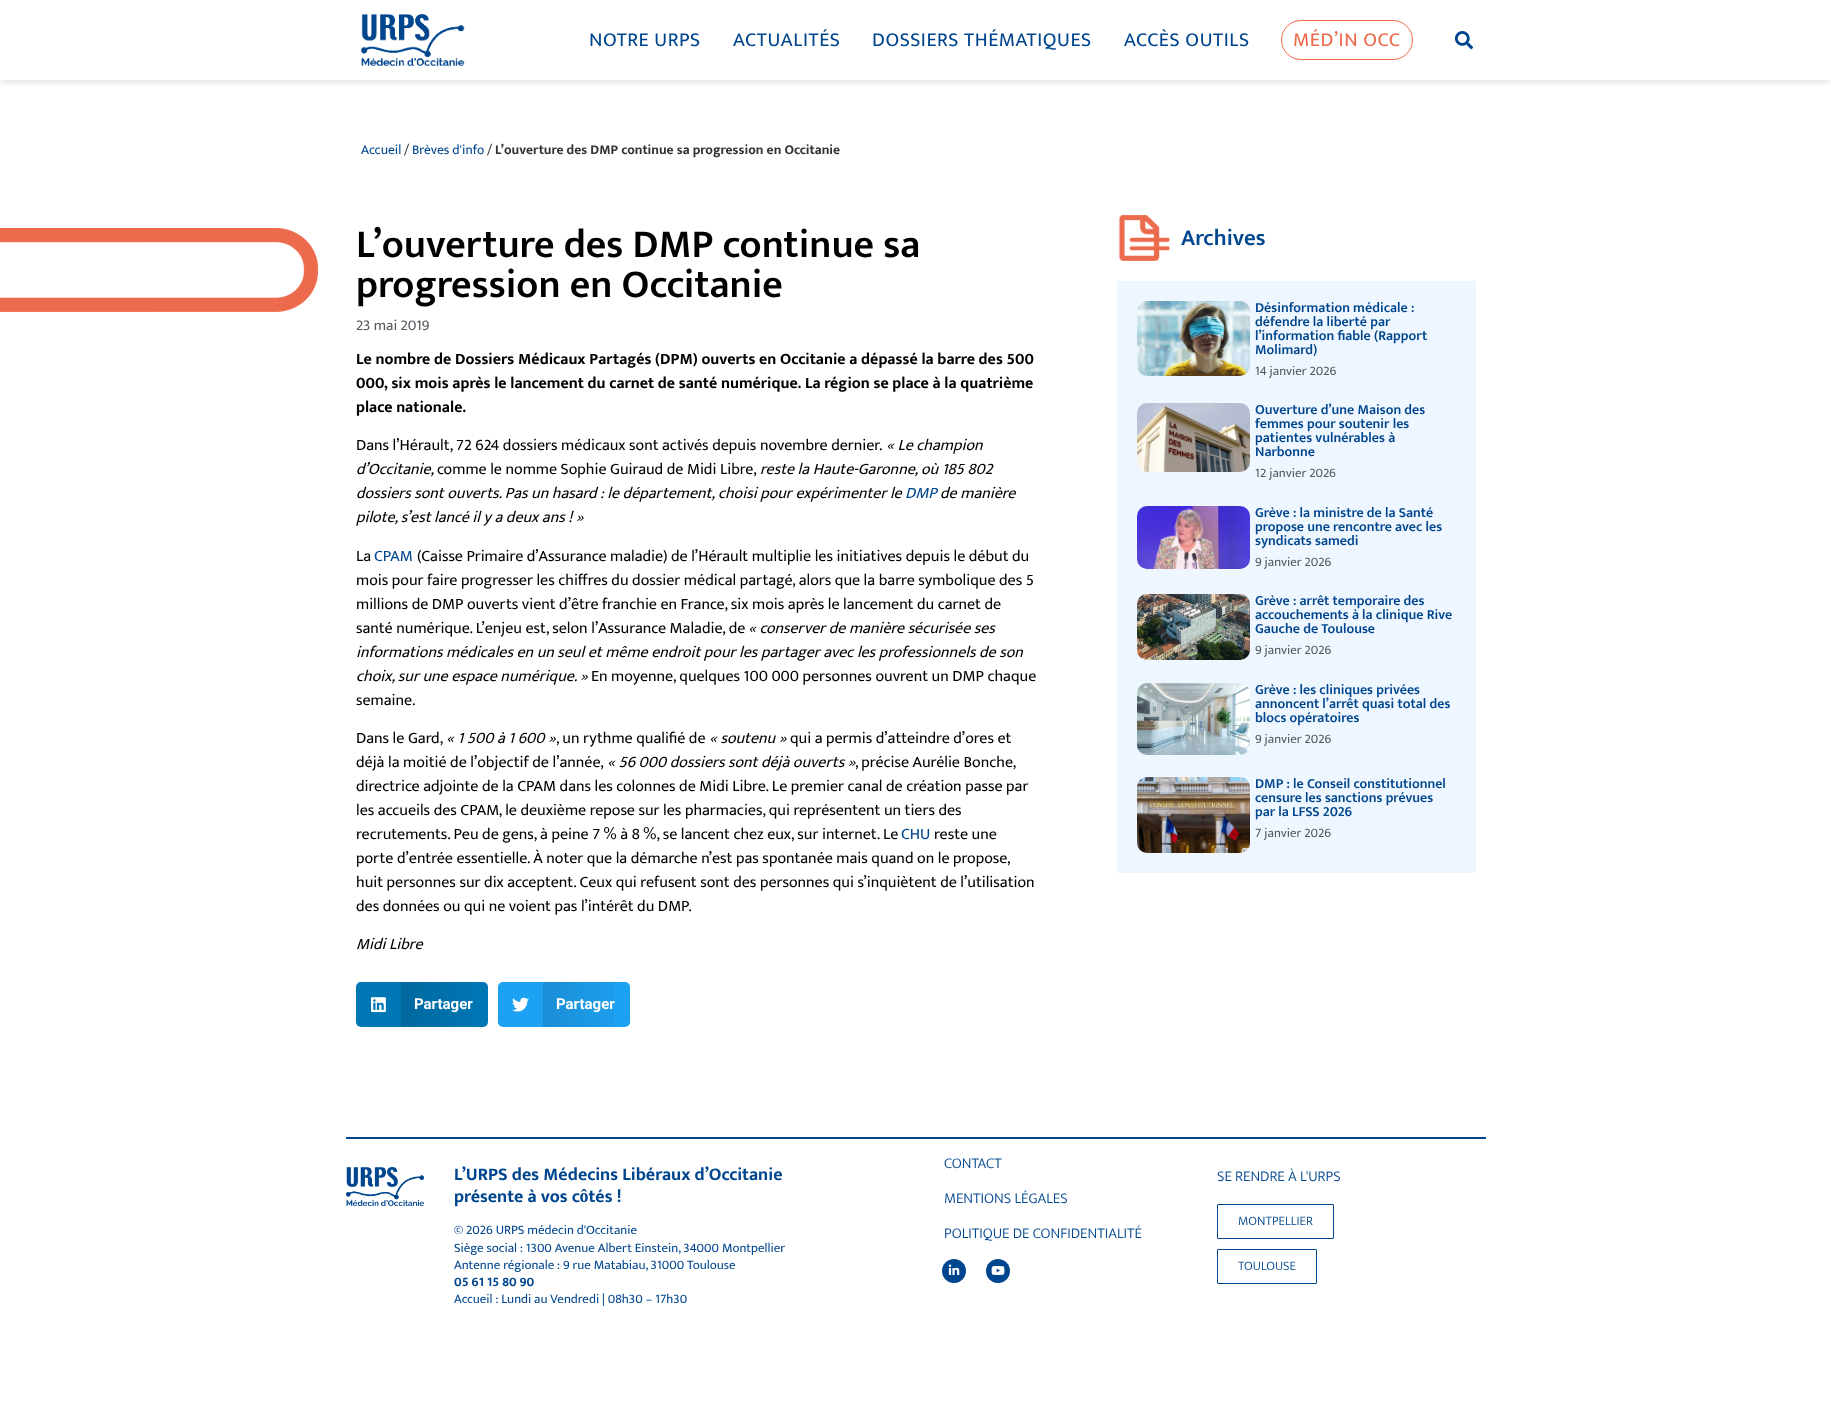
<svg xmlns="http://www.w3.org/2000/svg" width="1831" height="1402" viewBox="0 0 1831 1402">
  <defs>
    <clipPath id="clip1"><path d="M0 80h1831v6H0z"/></clipPath>
    <linearGradient id="g1" gradientUnits="userSpaceOnUse" x1="401" y1="1005" x2="488" y2="1005"><stop offset="0" stop-color="#000" stop-opacity="0.12"/><stop offset="1" stop-color="#000" stop-opacity="0"/></linearGradient>
    <linearGradient id="g2" gradientUnits="userSpaceOnUse" x1="543" y1="1005" x2="630" y2="1005"><stop offset="0" stop-color="#000" stop-opacity="0.12"/><stop offset="1" stop-color="#000" stop-opacity="0"/></linearGradient>
  </defs>
  <rect width="100%" height="100%" fill="#fff"/>
  <g clip-path="url(#clip1)">
    <path d="M0 0h1831v80H0z" fill="#0000002e" filter="blur(5px)"/>
  </g>
  <image x="360" y="14" width="105" height="52" href="img/1.png"/>
  <rect x="1281.5" y="20.5" width="131" height="39" rx="19.5" fill="none" stroke="#ed6b4d"/>
  <image x="1454" y="31" width="19" height="19" href="img/2.png"/>
  <image x="0" y="228" width="318" height="84" href="img/3.png"/>
  <rect x="356" y="982" width="132" height="45" rx="5" fill="#0077b5"/>
  <image x="371" y="997" width="15" height="16" href="img/4.png"/>
  <path d="M401 982h71v45H401z" fill="url(#g1)"/>
  <rect x="498" y="982" width="132" height="45" rx="5" fill="#1da1f2"/>
  <image x="512" y="997" width="17" height="15" href="img/5.png"/>
  <path d="M543 982h71v45H543z" fill="url(#g2)"/>
  <image x="1118" y="215" width="53" height="46" href="img/6.png"/>
  <path d="M1117 281h359v592H1117z" fill="#eef6ff"/>
  <image x="1137" y="301" width="113" height="75" href="img/7.png"/>
  <image x="1137" y="403" width="113" height="69" href="img/8.png"/>
  <image x="1137" y="506" width="113" height="63" href="img/9.png"/>
  <image x="1137" y="594" width="113" height="66" href="img/10.png"/>
  <image x="1137" y="683" width="113" height="72" href="img/11.png"/>
  <image x="1137" y="777" width="113" height="76" href="img/12.png"/>
  <path d="M346 1137h1140v2H346z" fill="#00468e"/>
  <image x="346" y="1167" width="78" height="39" href="img/13.png"/>
  <circle cx="954" cy="1271" r="12" fill="#00468e"/>
  <image x="948" y="1264" width="12" height="11" href="img/14.png"/>
  <circle cx="998" cy="1271" r="12" fill="#00468e"/>
  <image x="991" y="1266" width="14" height="9" href="img/15.png"/>
  <rect x="1217.5" y="1204.5" width="116" height="34" rx="0.5" fill="none" stroke="#00468e"/>
  <rect x="1217.5" y="1249.5" width="99" height="34" rx="0.5" fill="none" stroke="#00468e"/>
  <g font-family="Mukta" font-size="20" letter-spacing="0.6" fill="#00468e">
    <text x="589" y="46">NOTRE URPS</text>
    <text x="733" y="46">ACTUALITÉS</text>
    <text x="872" y="46">DOSSIERS THÉMATIQUES</text>
    <text x="1124" y="46">ACCÈS OUTILS</text>
  </g>
  <text x="1293" y="46" font-family="Mukta" font-size="20" letter-spacing="0.6" fill="#ed6b4d">MÉD’IN OCC</text>
  <text x="361" y="154" font-family="Mukta" font-size="13.6" fill="#00468e">Accueil</text>
  <text x="404" y="154" font-family="Mukta" font-size="13.6" fill="#333">/</text>
  <text x="412" y="154" font-family="Mukta" font-size="13.6" fill="#00468e">Brèves d'info</text>
  <text x="487" y="154" font-family="Mukta" font-size="13.6" fill="#333">/</text>
  <text x="495" y="154" font-family="Mukta" font-size="13.6" font-weight="bold" fill="#333">L’ouverture des DMP continue sa progression en Occitanie</text>
  <g font-family="Mukta" font-size="40" font-weight="600" fill="#000">
    <text x="356" y="257">L’ouverture des DMP continue sa</text>
    <text x="356" y="297">progression en Occitanie</text>
  </g>
  <text x="356" y="330" font-family="Mukta" font-size="15" fill="#54595f">23 mai 2019</text>
  <g font-family="Mukta" font-size="16" font-weight="bold" fill="#000">
    <text x="356" y="364">Le nombre de Dossiers Médicaux Partagés (DPM) ouverts en Occitanie a dépassé la barre des 500</text>
    <text x="356" y="388">000, six mois après le lancement du carnet de santé numérique. La région se place à la quatrième</text>
    <text x="356" y="412">place nationale.</text>
  </g>
  <text x="356" y="450" font-family="Mukta" font-size="16" fill="#000">Dans l’Hérault, 72 624 dossiers médicaux sont activés depuis novembre dernier.</text>
  <g font-family="Mukta" font-size="16" font-style="italic" fill="#000">
    <text x="886" y="450">« Le champion</text>
    <text x="356" y="474">d’Occitanie,</text>
  </g>
  <text x="437" y="474" font-family="Mukta" font-size="16" fill="#000">comme le nomme Sophie Guiraud de Midi Libre,</text>
  <g font-family="Mukta" font-size="16" font-style="italic" fill="#000">
    <text x="760" y="474">reste la Haute-Garonne, où 185 802</text>
    <text x="356" y="498">dossiers sont ouverts. Pas un hasard : le département, choisi pour expérimenter le</text>
  </g>
  <text x="905" y="498" font-family="Mukta" font-size="16" font-style="italic" fill="#00468e">DMP</text>
  <g font-family="Mukta" font-size="16" font-style="italic" fill="#000">
    <text x="940" y="498">de manière</text>
    <text x="356" y="522">pilote, s’est lancé il y a deux ans ! »</text>
  </g>
  <text x="356" y="561" font-family="Mukta" font-size="16" fill="#000">La</text>
  <text x="374" y="561" font-family="Mukta" font-size="16" fill="#00468e">CPAM</text>
  <g font-family="Mukta" font-size="16" fill="#000">
    <text x="417" y="561">(Caisse Primaire d’Assurance maladie) de l’Hérault multiplie les initiatives depuis le début du</text>
    <text x="356" y="585">mois pour faire progresser les chiffres du dossier médical partagé, alors que la barre symbolique des 5</text>
    <text x="356" y="609">millions de DMP ouverts vient d’être franchie en France, six mois après le lancement du carnet de</text>
    <text x="356" y="633">santé numérique. L’enjeu est, selon l’Assurance Maladie, de</text>
  </g>
  <g font-family="Mukta" font-size="16" font-style="italic" fill="#000">
    <text x="748" y="633">« conserver de manière sécurisée ses</text>
    <text x="356" y="657">informations médicales en un seul et même endroit pour les partager avec les professionnels de son</text>
    <text x="356" y="681">choix, sur une espace numérique. »</text>
  </g>
  <g font-family="Mukta" font-size="16" fill="#000">
    <text x="591" y="681">En moyenne, quelques 100 000 personnes ouvrent un DMP chaque</text>
    <text x="356" y="705">semaine.</text>
    <text x="356" y="743">Dans le Gard,</text>
  </g>
  <text x="446" y="743" font-family="Mukta" font-size="16" font-style="italic" fill="#000">« 1 500 à 1 600 »</text>
  <text x="556" y="743" font-family="Mukta" font-size="16" fill="#000">, un rythme qualifié de</text>
  <text x="709" y="743" font-family="Mukta" font-size="16" font-style="italic" fill="#000">« soutenu »</text>
  <g font-family="Mukta" font-size="16" fill="#000">
    <text x="790" y="743">qui a permis d’atteindre d’ores et</text>
    <text x="356" y="767">déjà la moitié de l’objectif de l’année,</text>
  </g>
  <text x="607" y="767" font-family="Mukta" font-size="16" font-style="italic" fill="#000">« 56 000 dossiers sont déjà ouverts »</text>
  <g font-family="Mukta" font-size="16" fill="#000">
    <text x="855" y="767">, précise Aurélie Bonche,</text>
    <text x="356" y="791">directrice adjointe de la CPAM dans les colonnes de Midi Libre. Le premier canal de création passe par</text>
    <text x="356" y="815">les accueils des CPAM, le deuxième repose sur les pharmacies, qui représentent un tiers des</text>
    <text x="356" y="839">recrutements. Peu de gens, à peine 7 % à 8 %, se lancent chez eux, sur internet. Le</text>
  </g>
  <text x="901" y="839" font-family="Mukta" font-size="16" fill="#00468e">CHU</text>
  <g font-family="Mukta" font-size="16" fill="#000">
    <text x="934" y="839">reste une</text>
    <text x="356" y="863">porte d’entrée essentielle. À noter que la démarche n’est pas spontanée mais quand on le propose,</text>
    <text x="356" y="887">huit personnes sur dix acceptent. Ceux qui refusent sont des personnes qui s’inquiètent de l’utilisation</text>
    <text x="356" y="911">des données ou qui ne voient pas l’intérêt du DMP.</text>
  </g>
  <text x="356" y="949" font-family="Mukta" font-size="16" font-style="italic" fill="#000">Midi Libre</text>
  <g font-family="Roboto" font-size="15" font-weight="bold" fill="#fff">
    <text x="414" y="1009">Partager</text>
    <text x="556" y="1009">Partager</text>
  </g>
  <text x="1181" y="245" font-family="Mukta" font-size="23" font-weight="600" fill="#00468e">Archives</text>
  <g font-family="Mukta" font-size="14" font-weight="600" fill="#00468e">
    <text x="1255" y="312">Désinformation médicale :</text>
    <text x="1255" y="326">défendre la liberté par</text>
    <text x="1255" y="340">l’information fiable (Rapport</text>
    <text x="1255" y="354">Molimard)</text>
  </g>
  <text x="1255" y="375" font-family="Mukta" font-size="13" fill="#54595f">14 janvier 2026</text>
  <g font-family="Mukta" font-size="14" font-weight="600" fill="#00468e">
    <text x="1255" y="414">Ouverture d’une Maison des</text>
    <text x="1255" y="428">femmes pour soutenir les</text>
    <text x="1255" y="442">patientes vulnérables à</text>
    <text x="1255" y="456">Narbonne</text>
  </g>
  <text x="1255" y="477" font-family="Mukta" font-size="13" fill="#54595f">12 janvier 2026</text>
  <g font-family="Mukta" font-size="14" font-weight="600" fill="#00468e">
    <text x="1255" y="517">Grève : la ministre de la Santé</text>
    <text x="1255" y="531">propose une rencontre avec les</text>
    <text x="1255" y="545">syndicats samedi</text>
  </g>
  <text x="1255" y="566" font-family="Mukta" font-size="13" fill="#54595f">9 janvier 2026</text>
  <g font-family="Mukta" font-size="14" font-weight="600" fill="#00468e">
    <text x="1255" y="605">Grève : arrêt temporaire des</text>
    <text x="1255" y="619">accouchements à la clinique Rive</text>
    <text x="1255" y="633">Gauche de Toulouse</text>
  </g>
  <text x="1255" y="654" font-family="Mukta" font-size="13" fill="#54595f">9 janvier 2026</text>
  <g font-family="Mukta" font-size="14" font-weight="600" fill="#00468e">
    <text x="1255" y="694">Grève : les cliniques privées</text>
    <text x="1255" y="708">annoncent l’arrêt quasi total des</text>
    <text x="1255" y="722">blocs opératoires</text>
  </g>
  <text x="1255" y="743" font-family="Mukta" font-size="13" fill="#54595f">9 janvier 2026</text>
  <g font-family="Mukta" font-size="14" font-weight="600" fill="#00468e">
    <text x="1255" y="788">DMP : le Conseil constitutionnel</text>
    <text x="1255" y="802">censure les sanctions prévues</text>
    <text x="1255" y="816">par la LFSS 2026</text>
  </g>
  <text x="1255" y="837" font-family="Mukta" font-size="13" fill="#54595f">7 janvier 2026</text>
  <g font-family="Mukta" font-size="18" font-weight="bold" fill="#00468e">
    <text x="454" y="1180">L’URPS des Médecins Libéraux d’Occitanie</text>
    <text x="454" y="1202">présente à vos côtés !</text>
  </g>
  <g font-family="Mukta" font-size="13" fill="#00468e">
    <text x="454" y="1234">© 2026 URPS médecin d'Occitanie</text>
    <text x="454" y="1252">Siège social : 1300 Avenue Albert Einstein, 34000 Montpellier</text>
    <text x="454" y="1269">Antenne régionale : 9 rue Matabiau, 31000 Toulouse</text>
  </g>
  <text x="454" y="1286" font-family="Mukta" font-size="13" font-weight="bold" fill="#00468e">05 61 15 80 90</text>
  <text x="454" y="1303" font-family="Mukta" font-size="13" fill="#00468e">Accueil : Lundi au Vendredi | 08h30 – 17h30</text>
  <g font-family="Mukta" font-size="15" font-weight="300" fill="#00468e">
    <text x="944" y="1168">CONTACT</text>
    <text x="944" y="1203">MENTIONS LÉGALES</text>
    <text x="944" y="1238">POLITIQUE DE CONFIDENTIALITÉ</text>
    <text x="1217" y="1181">SE RENDRE À L'URPS</text>
  </g>
  <g font-family="Mukta" font-size="13" font-weight="300" fill="#00468e">
    <text x="1238" y="1225">MONTPELLIER</text>
    <text x="1238" y="1270">TOULOUSE</text>
  </g>
</svg>
